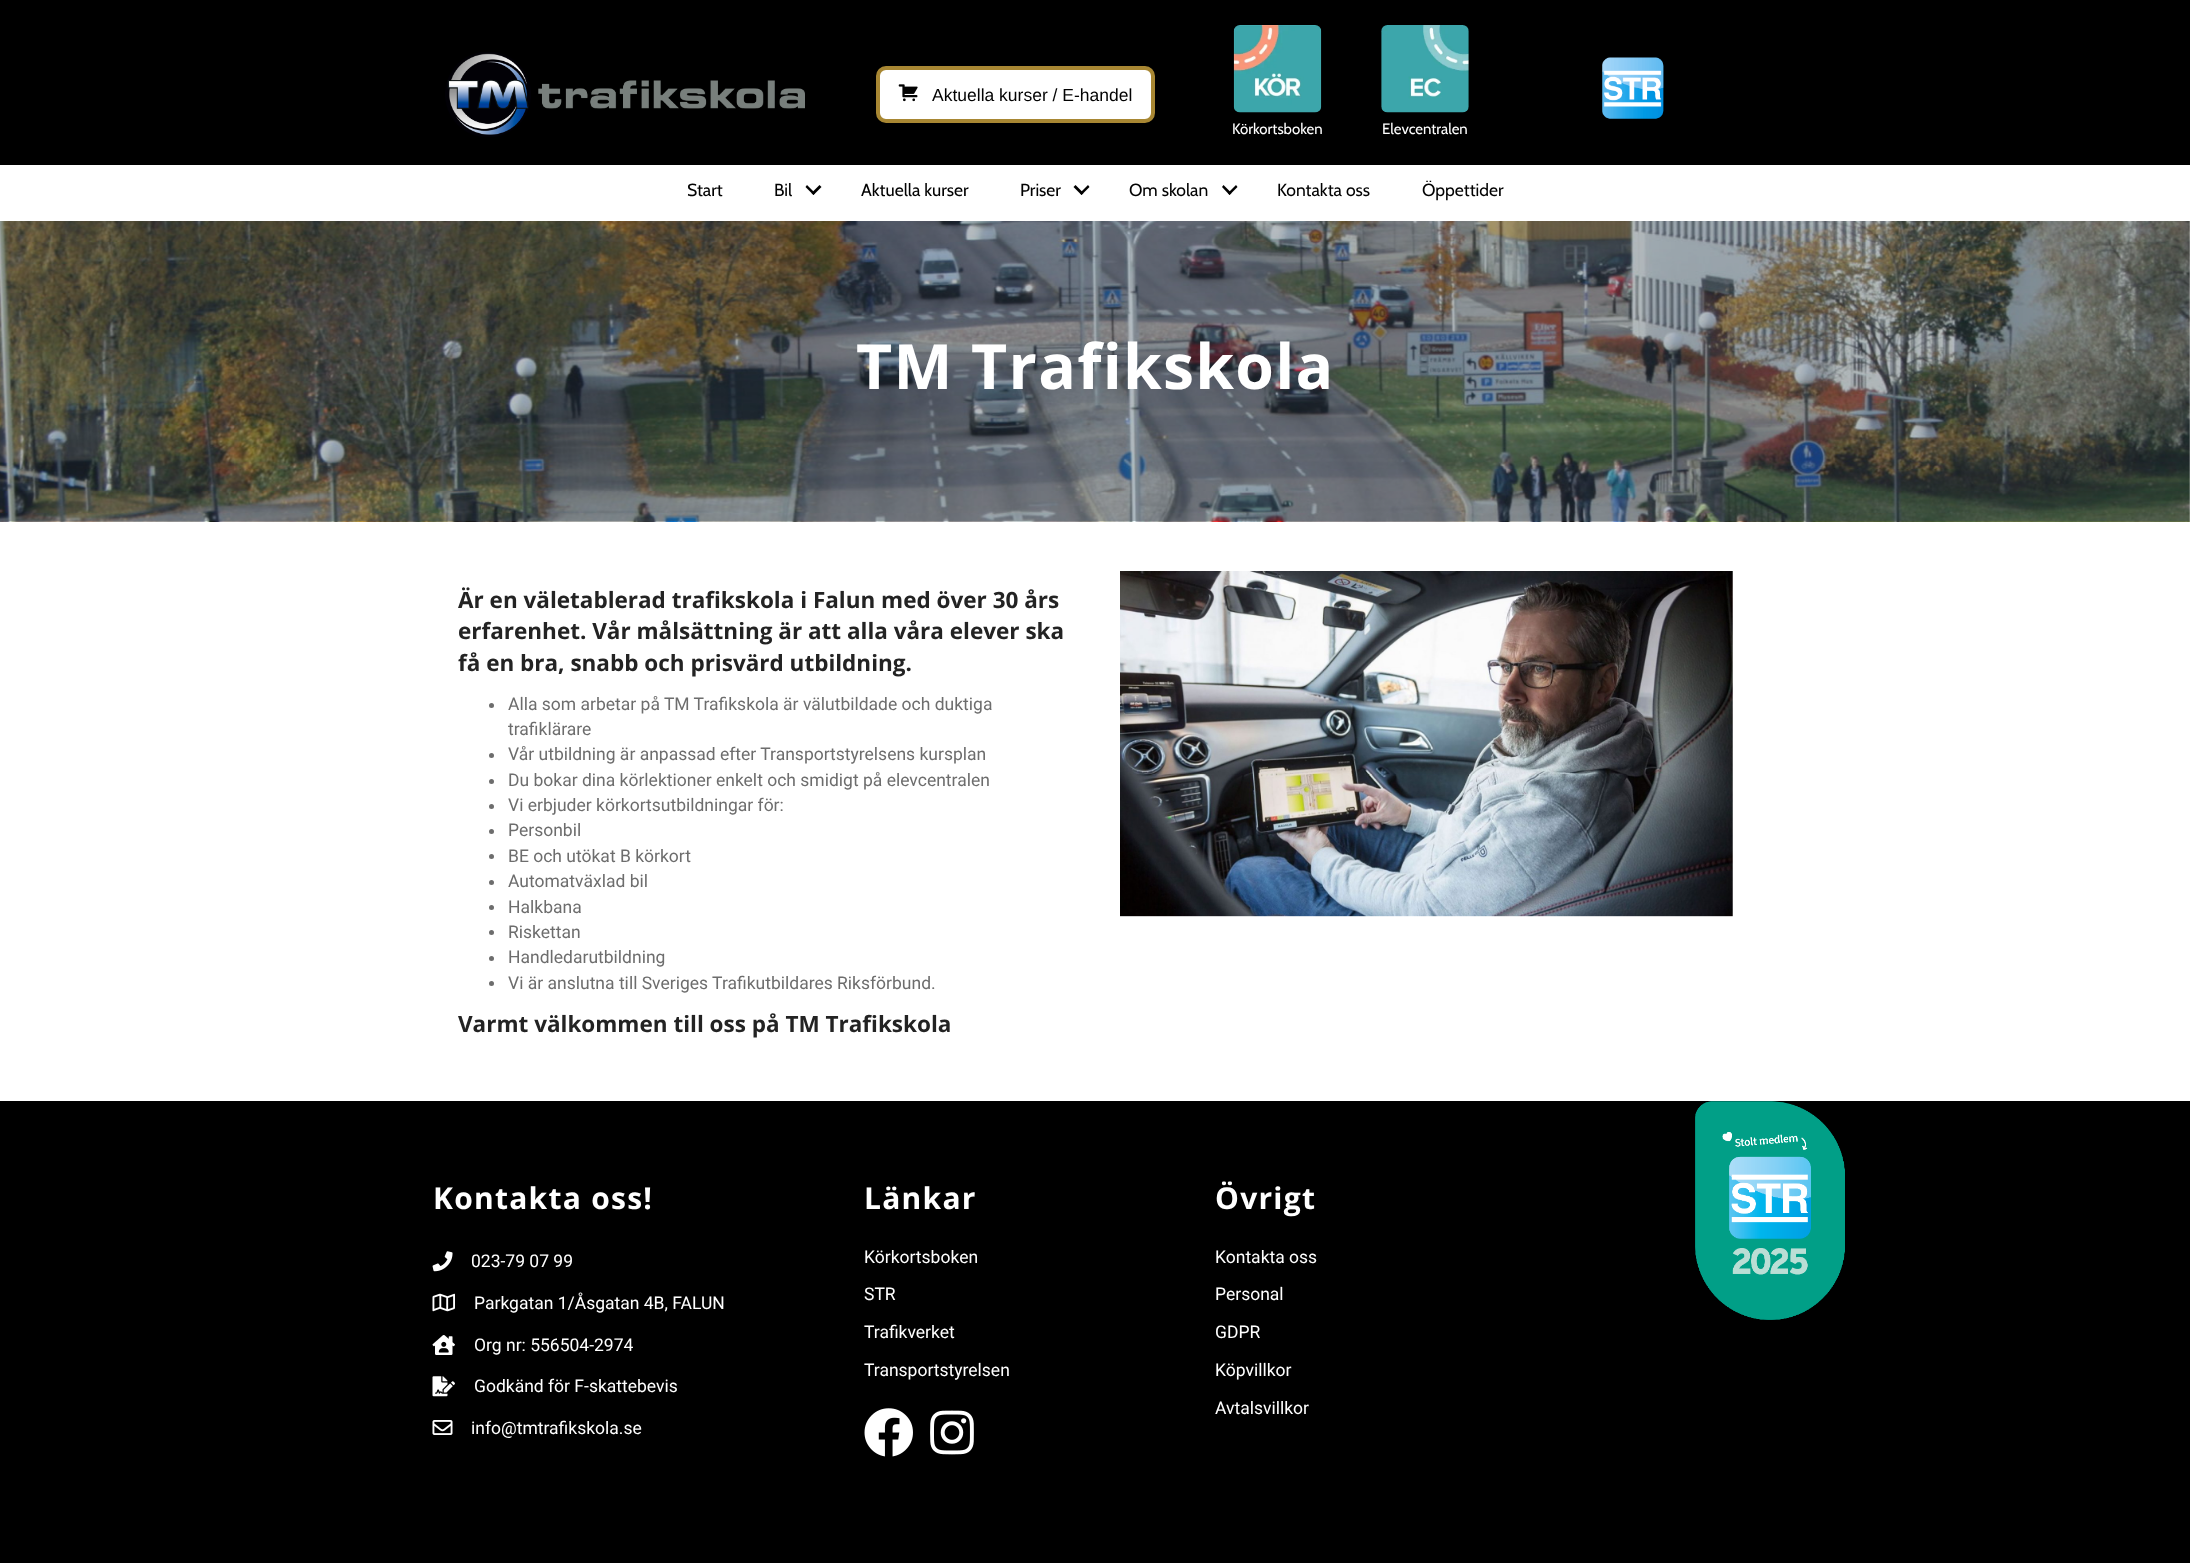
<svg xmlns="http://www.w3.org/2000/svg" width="2190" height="1563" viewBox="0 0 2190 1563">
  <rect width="100%" height="100%" fill="#fff"/>
  <path d="M0 0h2190v165H0z" fill="#000"/>
  <image x="445" y="52" width="360" height="85" href="img/1.png"/>
  <rect x="878" y="68" width="275" height="53" rx="8" fill="#fff" stroke="#a88733" stroke-width="4"/>
  <image x="898" y="84" width="20" height="18" href="img/2.png"/>
  <image x="1602" y="57" width="62" height="62" href="img/3.png"/>
  <image x="1233" y="25" width="89" height="88" href="img/4.png"/>
  <image x="1381" y="25" width="88" height="88" href="img/5.png"/>
  <path d="M819.5 185L821.5 187L813.5 195L811.5 193Z" fill="#000"/>
  <path d="M807 185L815 193L813.5 195L805.5 187Z" fill="#000"/>
  <path d="M1088 185L1089.5 187L1081.5 195L1080 193Z" fill="#000"/>
  <path d="M1075.5 185L1083.5 193L1081.5 195L1073.5 187Z" fill="#000"/>
  <path d="M1236 185L1237.5 187L1229.5 195L1228 193Z" fill="#000"/>
  <path d="M1223.5 185L1231.5 193L1229.5 195L1222 187Z" fill="#000"/>
  <image x="0" y="221" width="2190" height="301" href="img/6.png"/>
  <circle cx="491.5" cy="705.5" r="2.5" fill="#6d6d6d"/>
  <circle cx="491.5" cy="755.5" r="2.5" fill="#6d6d6d"/>
  <circle cx="491.5" cy="781.5" r="2.5" fill="#6d6d6d"/>
  <circle cx="491.5" cy="806.5" r="2.5" fill="#6d6d6d"/>
  <circle cx="491.5" cy="831.5" r="2.5" fill="#6d6d6d"/>
  <circle cx="491.5" cy="856.5" r="2.5" fill="#6d6d6d"/>
  <circle cx="491.5" cy="882.5" r="2.5" fill="#6d6d6d"/>
  <circle cx="491.5" cy="907.5" r="2.5" fill="#6d6d6d"/>
  <circle cx="491.5" cy="932.5" r="2.5" fill="#6d6d6d"/>
  <circle cx="491.5" cy="958.5" r="2.5" fill="#6d6d6d"/>
  <circle cx="491.5" cy="983.5" r="2.5" fill="#6d6d6d"/>
  <image x="1120" y="571" width="613" height="346" href="img/7.png"/>
  <path d="M0 1101h2190v462H0z" fill="#000"/>
  <image x="432" y="1251" width="21" height="21" href="img/8.png"/>
  <image x="432" y="1293" width="23" height="19" href="img/9.png"/>
  <image x="432" y="1335" width="23" height="20" href="img/10.png"/>
  <image x="432" y="1376" width="23" height="21" href="img/11.png"/>
  <image x="432" y="1420" width="21" height="15" href="img/12.png"/>
  <image x="864" y="1408" width="49" height="49" href="img/13.png"/>
  <image x="930" y="1410" width="44" height="45" href="img/14.png"/>
  <image x="1695" y="1101" width="150" height="219" href="img/15.png"/>
  <text x="932" y="101" font-family="Liberation Sans" font-size="17.5" fill="#020202">Aktuella kurser / E-handel</text>
  <g font-family="Cabin" font-size="15" fill="#fff">
    <text x="1232" y="134">Körkortsboken</text>
    <text x="1382" y="134">Elevcentralen</text>
  </g>
  <g font-family="Cabin" font-size="17.5" fill="#020202">
    <text x="687" y="196">Start</text>
    <text x="774" y="196">Bil</text>
    <text x="861" y="196">Aktuella kurser</text>
    <text x="1020" y="196">Priser</text>
    <text x="1129" y="196">Om skolan</text>
    <text x="1277" y="196">Kontakta oss</text>
    <text x="1422" y="196">Öppettider</text>
  </g>
  <text x="856" y="389" font-family="Open Sans" font-size="62.5" font-weight="bold" letter-spacing="1.25" fill="#fff">TM Trafikskola</text>
  <g font-family="Open Sans" font-size="22.5" font-weight="bold" fill="#232323">
    <text x="458" y="608">Är en väletablerad trafikskola i Falun med över 30 års</text>
    <text x="458" y="639">erfarenhet. Vår målsättning är att alla våra elever ska</text>
    <text x="458" y="671">få en bra, snabb och prisvärd utbildning.</text>
  </g>
  <g font-family="Roboto" font-size="17.5" fill="#6d6d6d">
    <text x="508" y="710">Alla som arbetar på TM Trafikskola är välutbildade och duktiga</text>
    <text x="508" y="735">trafiklärare</text>
    <text x="508" y="760">Vår utbildning är anpassad efter Transportstyrelsens kursplan</text>
    <text x="508" y="786">Du bokar dina körlektioner enkelt och smidigt på elevcentralen</text>
    <text x="508" y="811">Vi erbjuder körkortsutbildningar för:</text>
    <text x="508" y="836">Personbil</text>
    <text x="508" y="862">BE och utökat B körkort</text>
    <text x="508" y="887">Automatväxlad bil</text>
    <text x="508" y="913">Halkbana</text>
    <text x="508" y="938">Riskettan</text>
    <text x="508" y="963">Handledarutbildning</text>
    <text x="508" y="989">Vi är anslutna till Sveriges Trafikutbildares Riksförbund.</text>
  </g>
  <text x="458" y="1032" font-family="Open Sans" font-size="22.5" font-weight="bold" fill="#232323">Varmt välkommen till oss på TM Trafikskola</text>
  <text x="433" y="1209" font-family="Open Sans" font-size="30" font-weight="bold" letter-spacing="1.25" fill="#fff">Kontakta oss!</text>
  <g font-family="Roboto" font-size="17.5" fill="#fff">
    <text x="471" y="1267">023-79 07 99</text>
    <text x="474" y="1309">Parkgatan 1/Åsgatan 4B, FALUN</text>
    <text x="474" y="1351">Org nr: 556504-2974</text>
    <text x="474" y="1392">Godkänd för F-skattebevis</text>
    <text x="471" y="1434">info@tmtrafikskola.se</text>
  </g>
  <text x="864" y="1209" font-family="Open Sans" font-size="30" font-weight="bold" letter-spacing="1.25" fill="#fff">Länkar</text>
  <g font-family="Roboto" font-size="17.5" fill="#fff">
    <text x="864" y="1263">Körkortsboken</text>
    <text x="864" y="1300">STR</text>
    <text x="864" y="1338">Trafikverket</text>
    <text x="864" y="1376">Transportstyrelsen</text>
  </g>
  <text x="1215" y="1209" font-family="Open Sans" font-size="30" font-weight="bold" letter-spacing="1.25" fill="#fff">Övrigt</text>
  <g font-family="Roboto" font-size="17.5" fill="#fff">
    <text x="1215" y="1263">Kontakta oss</text>
    <text x="1215" y="1300">Personal</text>
    <text x="1215" y="1338">GDPR</text>
    <text x="1215" y="1376">Köpvillkor</text>
    <text x="1215" y="1414">Avtalsvillkor</text>
  </g>
</svg>
